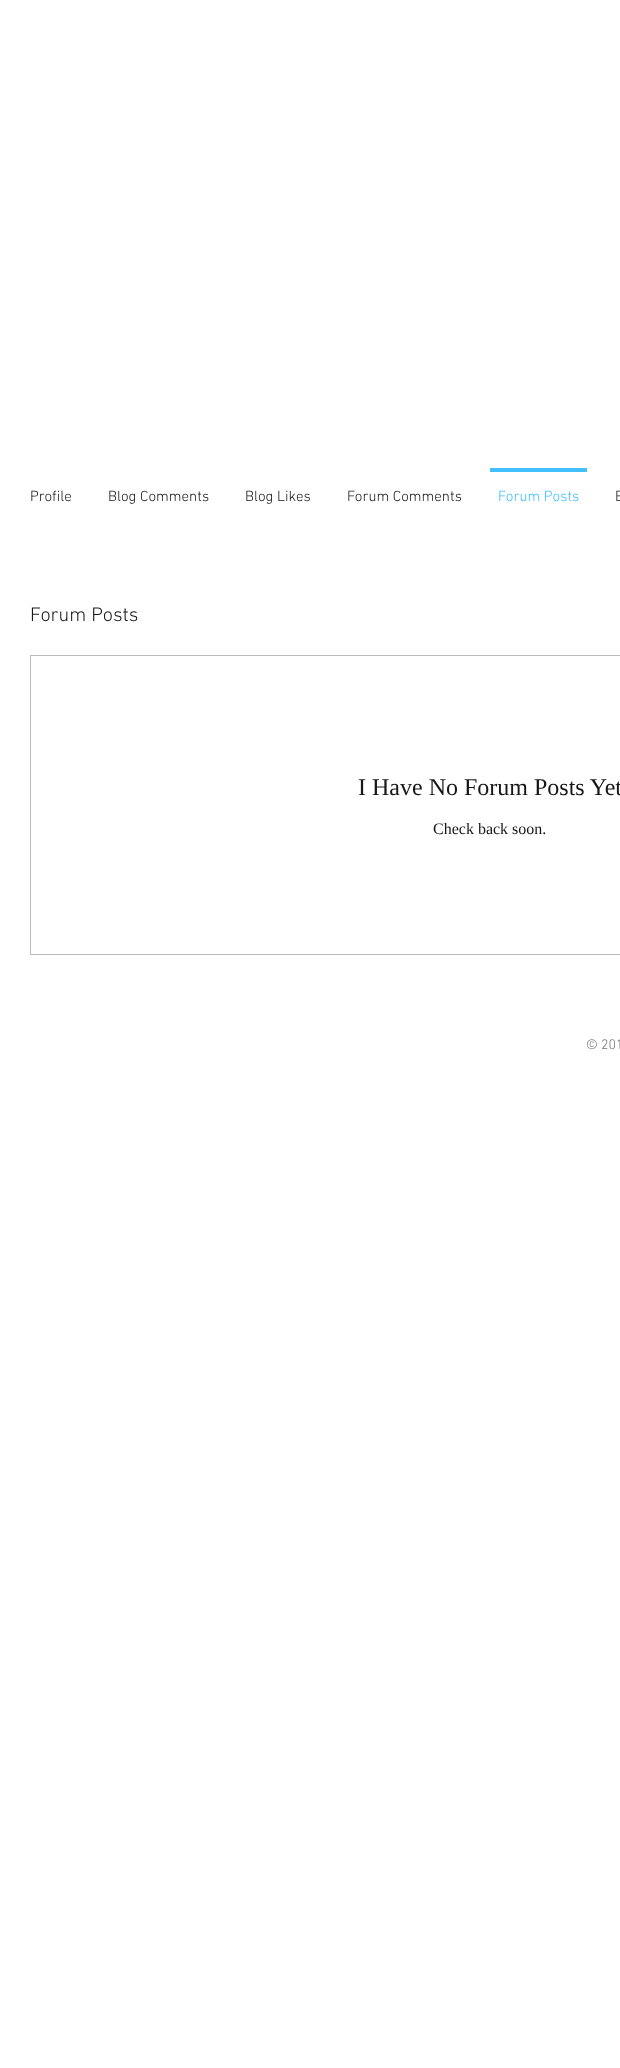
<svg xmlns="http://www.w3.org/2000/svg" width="620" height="2068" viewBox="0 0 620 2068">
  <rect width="100%" height="100%" fill="#fff"/>
  <path d="M490 468h97v4H490z" fill="#41bfff"/>
  <path d="M30.5 655.5h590v299H30.5z" fill="none" stroke="#b9b9b9"/>
  <g font-family="'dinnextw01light'" font-size="15" font-weight="300" fill="#171717">
    <text x="30" y="501">Profile</text>
    <text x="108" y="501">Blog Comments</text>
    <text x="245" y="501">Blog Likes</text>
    <text x="347" y="501">Forum Comments</text>
  </g>
  <text x="498" y="501" font-family="'dinnextw01light'" font-size="15" font-weight="300" fill="#41bfff">Forum Posts</text>
  <text x="615" y="501" font-family="'dinnextw01light'" font-size="15" font-weight="300" fill="#171717">E</text>
  <text x="30" y="621" font-family="'dinnextw01light'" font-size="20" font-weight="300" fill="#171717">Forum Posts</text>
  <text x="358" y="795" font-family="Liberation Serif" font-size="24" fill="#171717">I Have No Forum Posts Yet</text>
  <text x="433" y="834" font-family="Liberation Serif" font-size="16" fill="#171717">Check back soon.</text>
  <text x="586" y="1049" font-family="'dinnextw01light'" font-size="14" font-weight="300" fill="#707070">© 201</text>
</svg>
